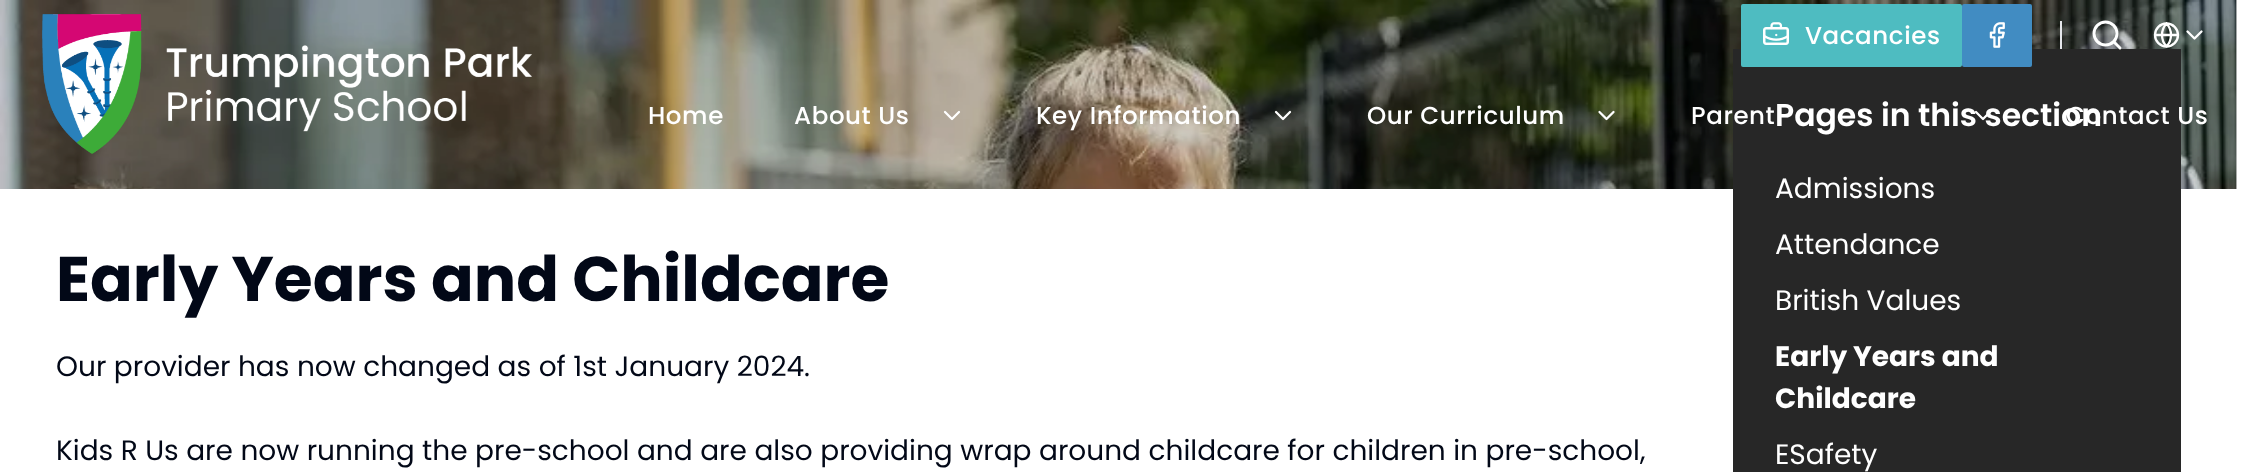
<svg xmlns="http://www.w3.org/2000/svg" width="2262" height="472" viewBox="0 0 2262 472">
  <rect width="100%" height="100%" fill="#fff"/>
  <path d="M2236 0h1v189H2236z" fill="#ccc"/>
  <image x="0" y="0" width="2237" height="189" href="img/4.png"/>
  <image x="42" y="14" width="490" height="140" href="img/1.png"/>
  <path d="M1733 49h448v423H1733z" fill="#272727"/>
  <rect x="1741" y="4" width="221" height="63" rx="2" fill="#4ebcc1"/>
  <image x="1763" y="22" width="26" height="23" href="img/2.png"/>
  <rect x="1962" y="4" width="70" height="63" rx="2" fill="#418cc2"/>
  <image x="1989" y="22" width="16" height="26" href="img/3.png"/>
  <path d="M2060 21h2v28H2060z" fill="#e5e7eb"/>
  <circle cx="2105.5" cy="33.5" r="11.5" fill="none" stroke="#fff" stroke-width="2.9"/>
  <path d="M2120 48L2114 42" fill="none" stroke="#fff" stroke-width="2.9" stroke-linecap="round" stroke-linejoin="round"/>
  <circle cx="2166.5" cy="35" r="11.5" fill="none" stroke="#fff" stroke-width="2.3"/>
  <path d="M2166.5 23.5C2160.5 30 2160.5 40 2166.5 46.5C2172.5 40 2172.5 30 2166.5 23.5M2155 35H2178M2187.5 31.5L2194.5 38.5L2201.5 31.5" fill="none" stroke="#fff" stroke-width="2.3" stroke-linecap="round" stroke-linejoin="round"/>
  <path d="M945 112L952 119L959 112" fill="none" stroke="#fff" stroke-width="2.3" stroke-linecap="round" stroke-linejoin="round"/>
  <path d="M1276 112L1283 119L1290 112" fill="none" stroke="#fff" stroke-width="2.3" stroke-linecap="round" stroke-linejoin="round"/>
  <path d="M1599.5 112L1606.5 119L1613.5 112" fill="none" stroke="#fff" stroke-width="2.3" stroke-linecap="round" stroke-linejoin="round"/>
  <path d="M1976 112L1983 119L1990 112" fill="none" stroke="#fff" stroke-width="2.3" stroke-linecap="round" stroke-linejoin="round"/>
  <g font-family="Poppins" font-size="24.5" font-weight="500" letter-spacing="0.6" fill="#fff">
    <text x="1805" y="44">Vacancies</text>
    <text x="648" y="124">Home</text>
    <text x="794" y="124">About Us</text>
    <text x="1036" y="124">Key Information</text>
    <text x="1367" y="124">Our Curriculum</text>
    <text x="1691" y="124">Parent</text>
  </g>
  <text x="56" y="301" font-family="Poppins" font-size="63" font-weight="bold" fill="#020817">Early Years and Childcare</text>
  <g font-family="Poppins" font-size="28" fill="#020817">
    <text x="56" y="376">Our provider has now changed as of 1st January 2024.</text>
    <text x="56" y="460">Kids R Us are now running the pre-school and are also providing wrap around childcare for children in pre-school,</text>
  </g>
  <text x="1775" y="126" font-family="Poppins" font-size="31.5" font-weight="600" fill="#fff">Pages in this section</text>
  <text x="2066" y="124" font-family="Poppins" font-size="24.5" font-weight="500" letter-spacing="0.6" fill="#fff">Contact Us</text>
  <g font-family="Poppins" font-size="28" fill="#fff">
    <text x="1775" y="198">Admissions</text>
    <text x="1775" y="254">Attendance</text>
    <text x="1775" y="310">British Values</text>
  </g>
  <g font-family="Poppins" font-size="28" font-weight="bold" fill="#fff">
    <text x="1775" y="366">Early Years and</text>
    <text x="1775" y="408">Childcare</text>
  </g>
  <text x="1775" y="464" font-family="Poppins" font-size="28" fill="#fff">ESafety</text>
</svg>
